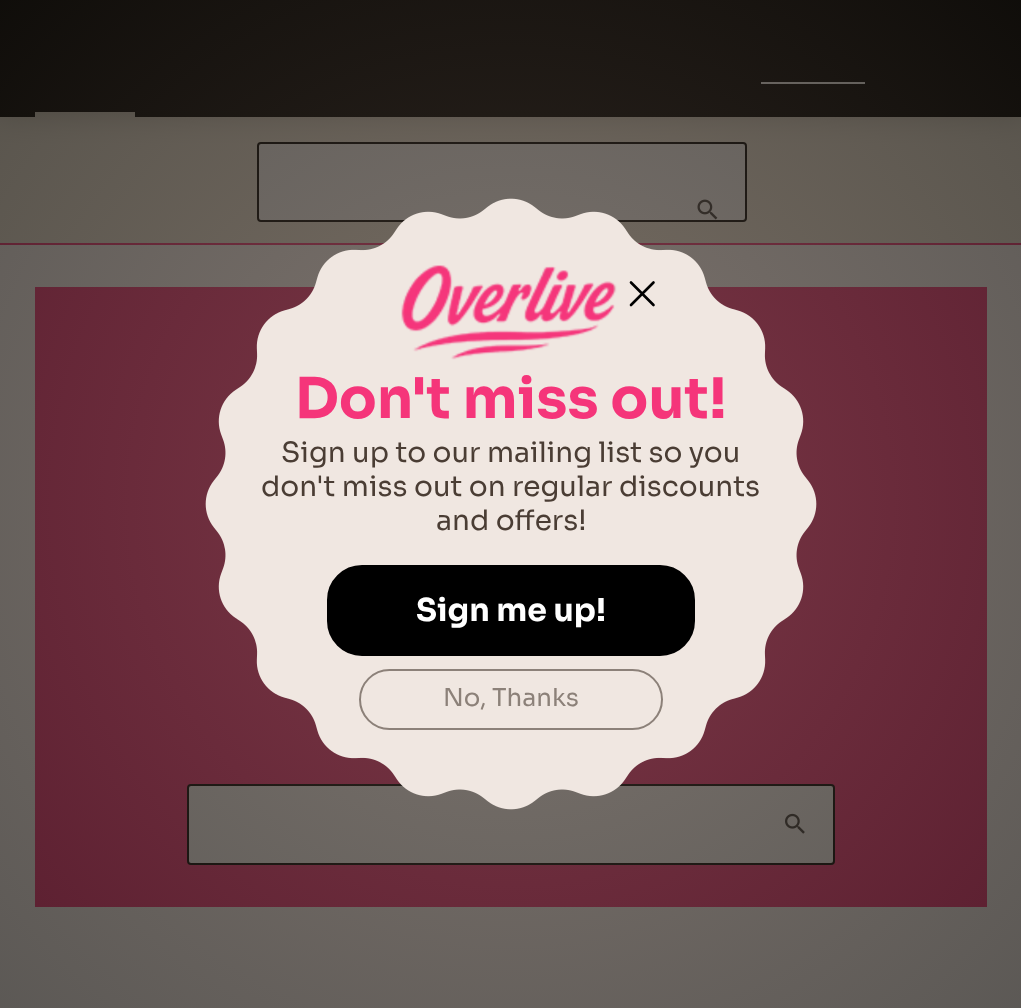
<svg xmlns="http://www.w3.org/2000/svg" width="1021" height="1008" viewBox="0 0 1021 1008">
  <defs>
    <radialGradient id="g1" gradientUnits="userSpaceOnUse" cx="511" cy="504" r="718"><stop offset="0" stop-color="#4a3d34" stop-opacity="0.7"/><stop offset="1" stop-color="#16130e" stop-opacity="0.7"/></radialGradient>
  </defs>
  <rect width="100%" height="100%" fill="#fffbfb"/>
  <path d="M0 112h1021v5H0z" fill="#000"/>
  <path d="M0 117h1021v126H0z" fill="#ede7da"/>
  <path d="M35 112h100v5H35z" fill="#ede7da"/>
  <rect x="258" y="143" width="488" height="78" rx="3" fill="#fafafa" stroke="#000" stroke-width="2"/>
  <path d="M0 2h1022v112H0z" fill="#00000033" filter="blur(14px)"/>
  <path d="M0 0h1021v112H0z" fill="#010001"/>
  <path d="M761 82h104v2H761z" fill="#fff"/>
  <path d="M0 243h1021v2H0z" fill="#f5357a"/>
  <image x="697" y="199" width="21" height="21" href="img/1.png"/>
  <path d="M35 287h952v620H35z" fill="#f5357a"/>
  <rect x="188" y="785" width="646" height="79" rx="3" fill="#fafafa" stroke="#000" stroke-width="2"/>
  <image x="785" y="813" width="20" height="21" href="img/2.png"/>
  <path d="M0 0h1021v1008H0z" fill="url(#g1)"/>
  <image x="205" y="198" width="612" height="612" href="img/3.png"/>
  <image x="401" y="265" width="216" height="95" href="img/4.png"/>
  <path d="M631 282.5L653.5 305M653.5 282.5L631 305" fill="none" stroke="#000" stroke-width="2.6" stroke-linecap="round"/>
  <rect x="328" y="566" width="366" height="89" rx="34" fill="#000" stroke="#000" stroke-width="2"/>
  <rect x="360" y="670" width="302" height="59" rx="29.5" fill="none" stroke="#8c8179" stroke-width="2"/>
  <text x="295" y="418" font-family="Sora" font-size="56" font-weight="bold" fill="#f5357a">Don't miss out!</text>
  <g font-family="Sora" font-size="28" fill="#4a3d34">
    <text x="281" y="462">Sign up to our mailing list so you</text>
    <text x="261" y="496">don't miss out on regular discounts</text>
    <text x="436" y="530">and offers!</text>
  </g>
  <text x="416" y="621" font-family="Sora" font-size="31.5" font-weight="bold" fill="#fff">Sign me up!</text>
  <text x="443" y="706" font-family="Sora" font-size="24.5" fill="#8c8179">No, Thanks</text>
</svg>
